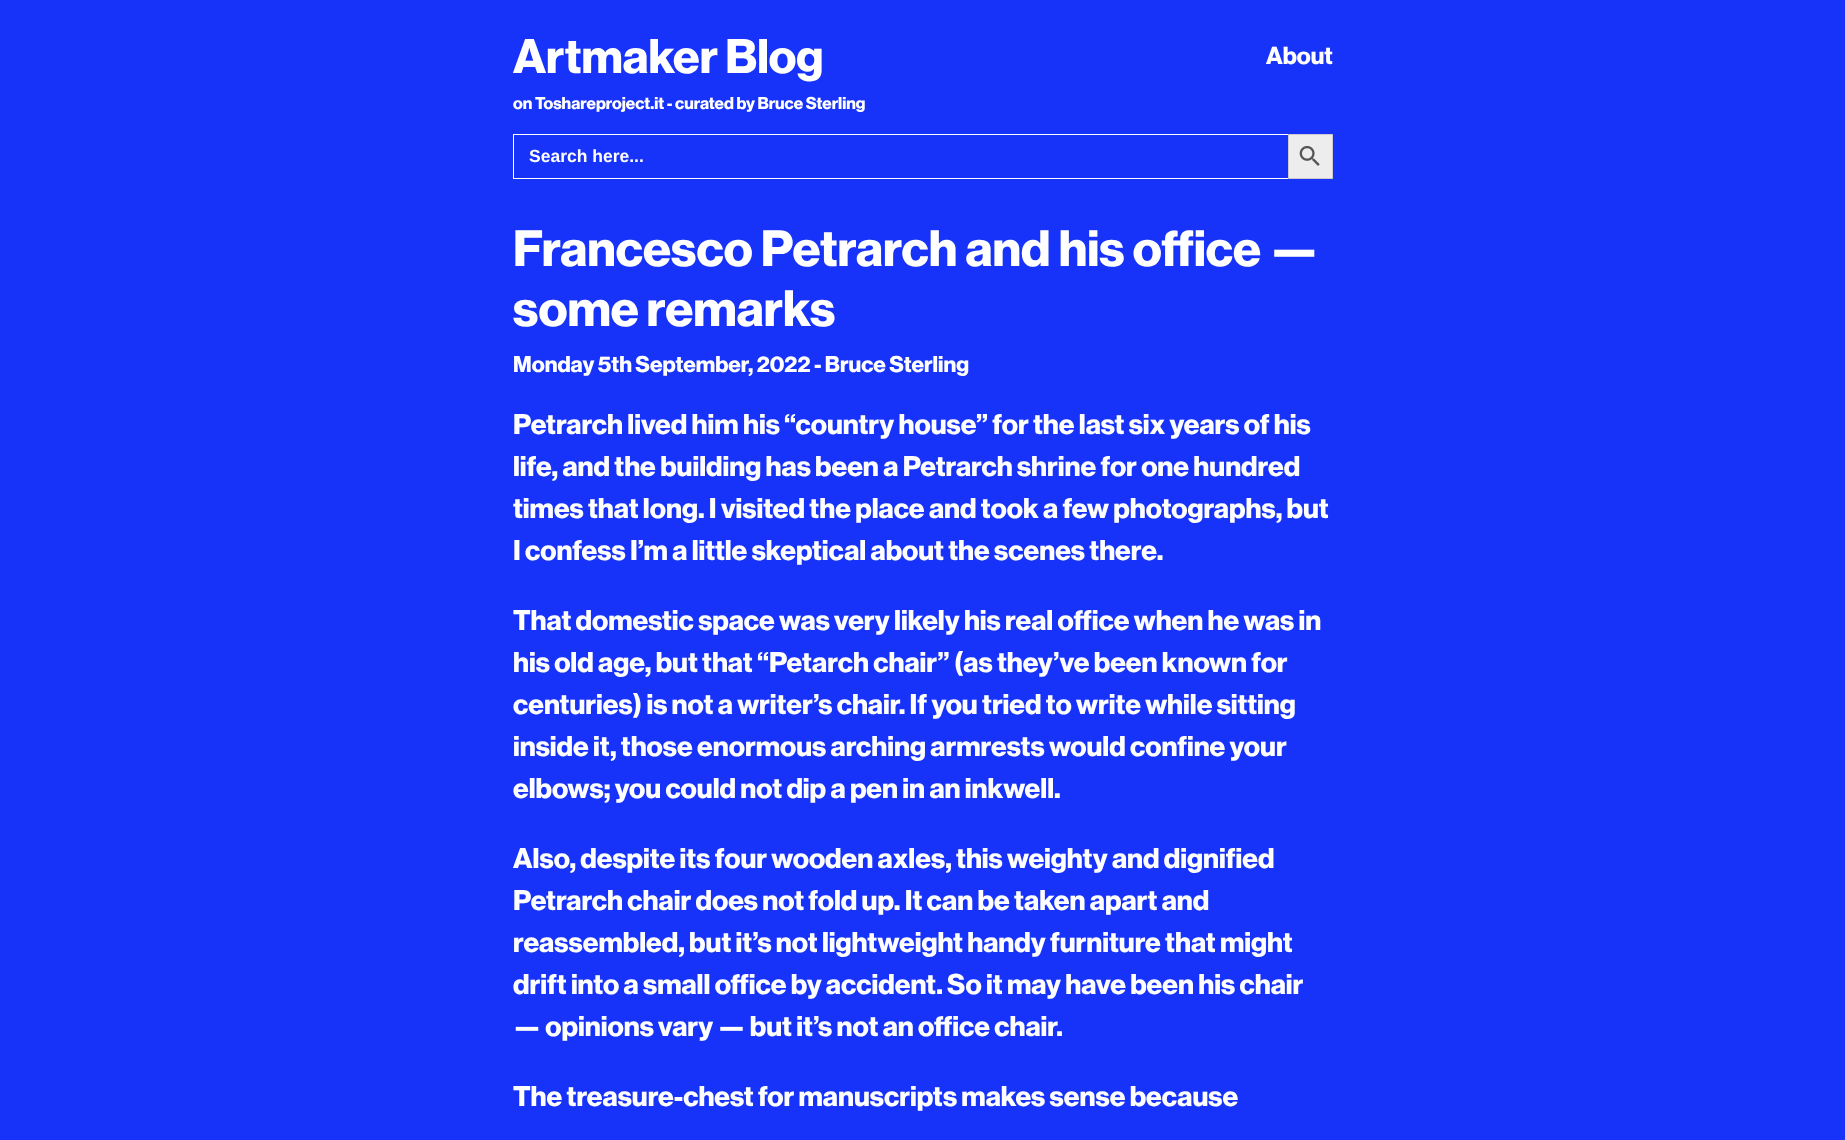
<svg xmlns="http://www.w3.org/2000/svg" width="1845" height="1140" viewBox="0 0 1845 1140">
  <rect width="100%" height="100%" fill="#1733f9"/>
  <path d="M513 134h775v1H513z" fill="#fff"/>
  <path d="M513 178h775v1H513z" fill="#fff"/>
  <path d="M513 134h1v45H513z" fill="#fff"/>
  <path d="M1288.5 134.5h44v44H1288.5z" fill="#ededed" stroke="#ccc"/>
  <image x="1299" y="145" width="21" height="21" href="img/1.png"/>
  <text x="513" y="73" font-family="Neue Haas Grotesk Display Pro" font-size="47.5" font-weight="bold" fill="#fff">Artmaker Blog</text>
  <text x="1266" y="64" font-family="Neue Haas Grotesk Display Pro" font-size="24" font-weight="bold" fill="#fff">About</text>
  <text x="513" y="109" font-family="Neue Haas Grotesk Display Pro" font-size="16.8" font-weight="bold" fill="#fff">on Toshareproject.it - curated by Bruce Sterling</text>
  <text x="529" y="162" font-family="Liberation Sans" font-size="17.5" font-weight="bold" fill="#fff">Search here...</text>
  <g font-family="Neue Haas Grotesk Display Pro" font-size="50" font-weight="bold" fill="#fff">
    <text x="513" y="266" word-spacing="0.5">Francesco Petrarch and his office —</text>
    <text x="513" y="326">some remarks</text>
  </g>
  <text x="513" y="372" font-family="Neue Haas Grotesk Display Pro" font-size="22.4" font-weight="bold" fill="#fff">Monday 5th September, 2022 - Bruce Sterling</text>
  <g font-family="Neue Haas Grotesk Display Pro" font-size="28" font-weight="bold" fill="#fff">
    <text x="513" y="434">Petrarch lived him his “country house” for the last six years of his</text>
    <text x="513" y="476">life, and the building has been a Petrarch shrine for one hundred</text>
    <text x="513" y="518">times that long. I visited the place and took a few photographs, but</text>
    <text x="513" y="560">I confess I’m a little skeptical about the scenes there.</text>
    <text x="513" y="630">That domestic space was very likely his real office when he was in</text>
    <text x="513" y="672">his old age, but that “Petarch chair” (as they’ve been known for</text>
    <text x="513" y="714">centuries) is not a writer’s chair. If you tried to write while sitting</text>
    <text x="513" y="756">inside it, those enormous arching armrests would confine your</text>
    <text x="513" y="798">elbows; you could not dip a pen in an inkwell.</text>
    <text x="513" y="868">Also, despite its four wooden axles, this weighty and dignified</text>
    <text x="513" y="910">Petrarch chair does not fold up. It can be taken apart and</text>
    <text x="513" y="952">reassembled, but it’s not lightweight handy furniture that might</text>
    <text x="513" y="994">drift into a small office by accident. So it may have been his chair</text>
    <text x="513" y="1036">— opinions vary — but it’s not an office chair.</text>
    <text x="513" y="1106">The treasure-chest for manuscripts makes sense because</text>
  </g>
</svg>
